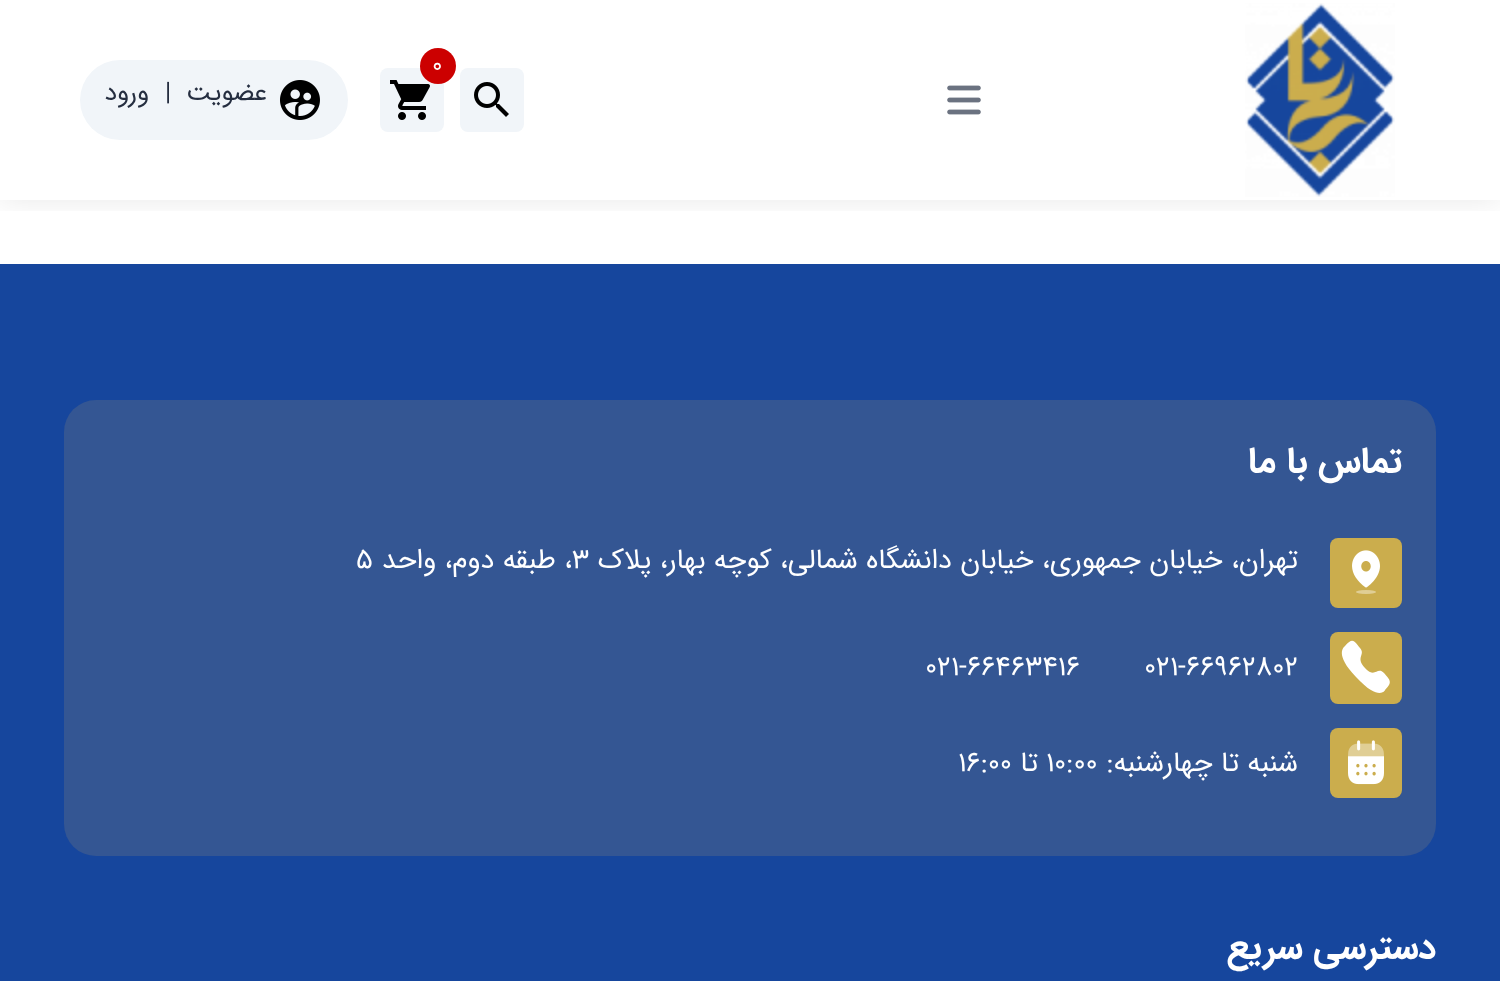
<svg xmlns="http://www.w3.org/2000/svg" width="1500" height="981" viewBox="0 0 1500 981">
  <defs>
    <clipPath id="clip1"><path d="M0 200h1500v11H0z"/></clipPath>
  </defs>
  <rect width="100%" height="100%" fill="#fff"/>
  <g clip-path="url(#clip1)">
    <path d="M0 0h1500v200H0z" fill="#00000017" filter="blur(15px)"/>
  </g>
  <image x="1245" y="3" width="150" height="194" href="img/1.png"/>
  <image x="947" y="85" width="34" height="30" href="img/2.png"/>
  <rect x="380" y="68" width="64" height="64" rx="8" fill="#f1f5f9"/>
  <image x="390" y="80" width="40" height="40" href="img/3.png"/>
  <circle cx="438" cy="66" r="18" fill="#c00"/>
  <rect x="460" y="68" width="64" height="64" rx="8" fill="#f1f5f9"/>
  <image x="474" y="82" width="35" height="35" href="img/4.png"/>
  <rect x="80" y="60" width="268" height="80" rx="40" fill="#f1f5f9"/>
  <image x="280" y="80" width="40" height="40" href="img/5.png"/>
  <path d="M0 264h1500v717H0z" fill="#16469d"/>
  <rect x="64" y="400" width="1372" height="456" rx="32" fill="#345693"/>
  <rect x="1330" y="538" width="72" height="70" rx="8" fill="#cbad4d"/>
  <image x="1352" y="550" width="28" height="44" href="img/6.png"/>
  <rect x="1330" y="632" width="72" height="72" rx="8" fill="#cbad4d"/>
  <path d="M1365 668C1375 679 1377 666 1384 673C1390 680 1393 682 1385 690C1385 691 1378 701 1356 677C1334 654 1344 647 1345 646C1353 637 1354 641 1360 648C1366 655 1355 657 1365 668Z" fill="#fff" fill-rule="evenodd"/>
  <rect x="1330" y="728" width="72" height="70" rx="8" fill="#cbad4d"/>
  <image x="1348" y="740" width="36" height="45" href="img/7.png"/>
  <text x="432" y="72" font-family="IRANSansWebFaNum" font-size="24" fill="#fff">0</text>
  <text x="267" y="100" font-family="IRANSansWebFaNum" font-size="25.5" direction="rtl" fill="#252e40">عضویت</text>
  <text x="165" y="100" font-family="IRANSansWebFaNum" font-size="25.5" fill="#252e40">|</text>
  <text x="149" y="100" font-family="IRANSansWebFaNum" font-size="25.5" direction="rtl" fill="#252e40">ورود</text>
  <text x="1402" y="472" font-family="IRANSansWebFaNum" font-size="36" font-weight="bold" direction="rtl" fill="#fff">تماس با ما</text>
  <text x="1298" y="568" font-family="IRANSansWebFaNum" font-size="28" direction="rtl" fill="#fff">تهران، خیابان جمهوری، خیابان دانشگاه شمالی، کوچه بهار، پلاک</text>
  <text x="572" y="568" font-family="IRANSansWebFaNum" font-size="28" fill="#fff">۳</text>
  <text x="572" y="568" font-family="IRANSansWebFaNum" font-size="28" direction="rtl" fill="#fff">، طبقه دوم، واحد</text>
  <g font-family="IRANSansWebFaNum" font-size="28" fill="#fff">
    <text x="356" y="568">۵</text>
    <text x="1144" y="675">۰۲۱-۶۶۹۶۲۸۰۲</text>
    <text x="925" y="675">۰۲۱-۶۶۴۶۳۴۱۶</text>
  </g>
  <text x="1298" y="771" font-family="IRANSansWebFaNum" font-size="28" direction="rtl" fill="#fff">شنبه تا چهارشنبه:</text>
  <text x="1046" y="771" font-family="IRANSansWebFaNum" font-size="28" fill="#fff">۱۰:۰۰</text>
  <text x="1038" y="771" font-family="IRANSansWebFaNum" font-size="28" direction="rtl" fill="#fff">تا</text>
  <text x="958" y="771" font-family="IRANSansWebFaNum" font-size="28" fill="#fff">۱۶:۰۰</text>
  <text x="1436" y="958" font-family="IRANSansWebFaNum" font-size="36" font-weight="bold" direction="rtl" fill="#fff">دسترسی سریع</text>
</svg>
